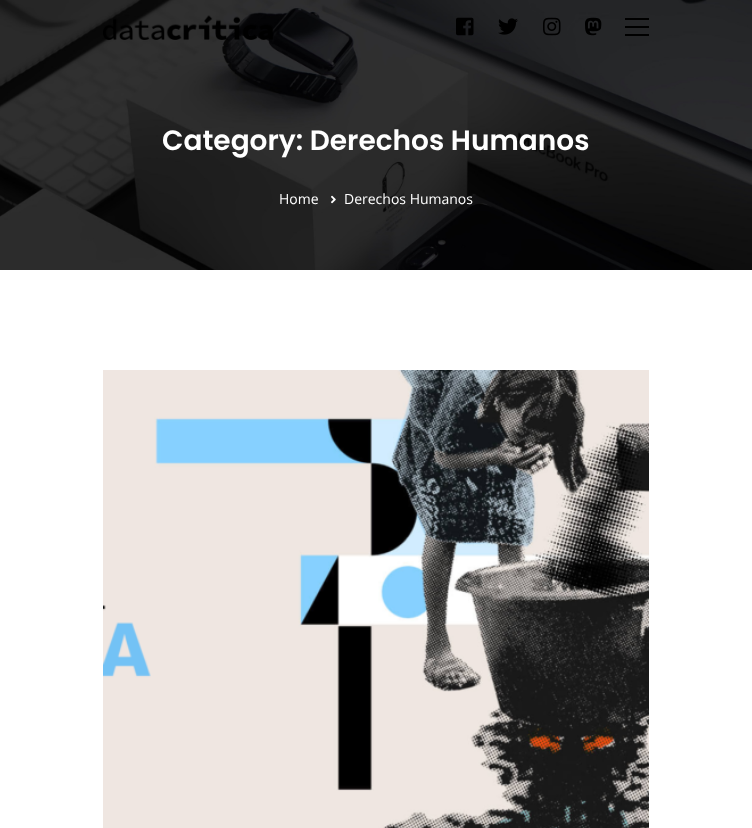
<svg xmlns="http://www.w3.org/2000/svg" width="752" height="828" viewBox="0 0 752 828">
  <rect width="100%" height="100%" fill="#fff"/>
  <image x="0" y="0" width="752" height="270" href="img/6.png"/>
  <image x="103" y="15" width="170" height="25" href="img/1.png"/>
  <image x="456" y="17" width="18" height="19" href="img/2.png"/>
  <image x="498" y="18" width="20" height="17" href="img/3.png"/>
  <image x="543" y="17" width="18" height="19" href="img/4.png"/>
  <image x="585" y="17" width="17" height="19" href="img/5.png"/>
  <path d="M625 26h24v2H625z" fill="#000"/>
  <path d="M625 18h24v2H625z" fill="#000"/>
  <path d="M625 34h24v2H625z" fill="#000"/>
  <image x="331" y="195" width="5" height="9" href="img/7.png"/>
  <image x="103" y="370" width="546" height="458" href="img/8.png"/>
  <text x="162" y="150" font-family="Poppins" font-size="28" font-weight="600" fill="#fff">Category: Derechos Humanos</text>
  <g font-family="Open Sans" font-size="14" fill="#fff">
    <text x="279" y="204">Home</text>
    <text x="344" y="204">Derechos Humanos</text>
  </g>
</svg>
